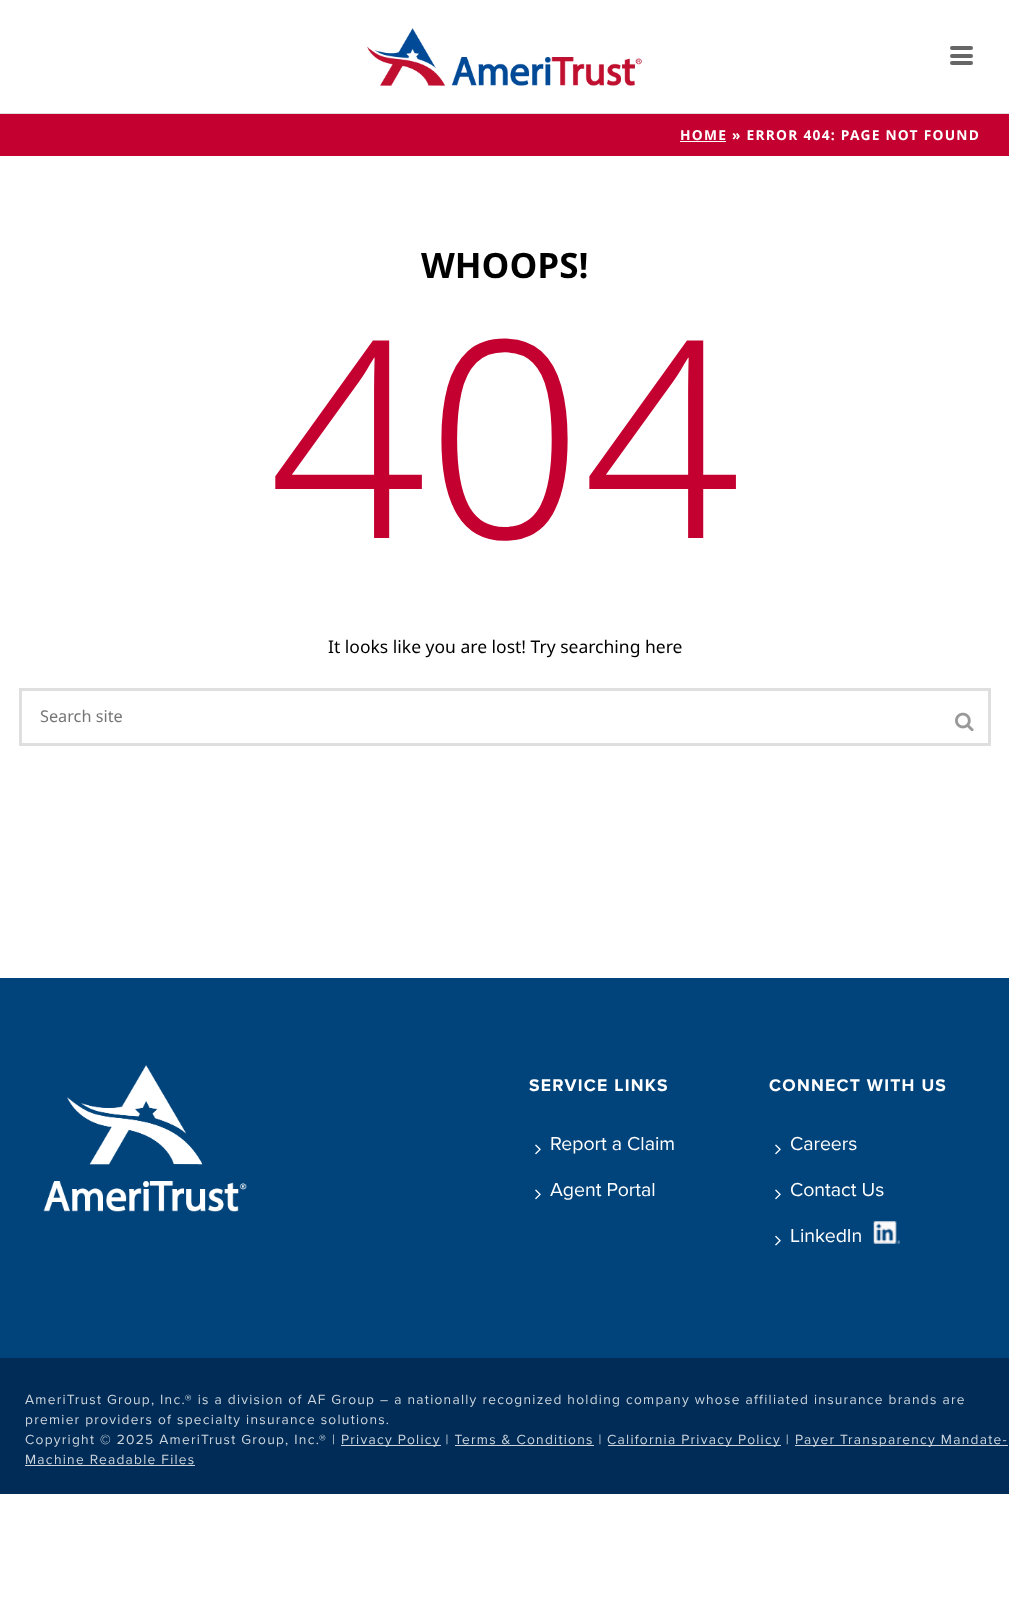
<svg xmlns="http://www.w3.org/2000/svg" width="1009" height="1620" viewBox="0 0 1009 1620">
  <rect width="100%" height="100%" fill="#fff"/>
  <path d="M0 113h1009v1H0z" fill="#dedede"/>
  <image x="367" y="28" width="275" height="58" href="img/1.png"/>
  <rect x="950" y="46" width="23" height="4" rx="2" fill="#666"/>
  <rect x="950" y="54" width="23" height="4" rx="2" fill="#666"/>
  <rect x="950" y="61" width="23" height="4" rx="2" fill="#666"/>
  <path d="M0 114h1009v42H0z" fill="#c3002f"/>
  <path d="M680 141h46v1H680z" fill="#fff"/>
  <path d="M20.5 689.5h969v55H20.5z" fill="none" stroke="#dfdfdf" stroke-width="3"/>
  <image x="955" y="712" width="19" height="19" href="img/2.png"/>
  <path d="M0 978h1009v380H0z" fill="#00447b"/>
  <image x="43" y="1065" width="204" height="147" href="img/3.png"/>
  <image x="535" y="1144" width="6" height="11" href="img/4.png"/>
  <image x="535" y="1189" width="6" height="11" href="img/4.png"/>
  <image x="775" y="1144" width="6" height="11" href="img/4.png"/>
  <image x="775" y="1189" width="6" height="11" href="img/4.png"/>
  <image x="775" y="1235" width="6" height="11" href="img/5.png"/>
  <image x="873" y="1221" width="27" height="23" href="img/6.png"/>
  <path d="M0 1358h1009v136H0z" fill="#002c57"/>
  <path d="M341 1445h100v1H341z" fill="#ccd5dd"/>
  <path d="M608 1445h173v1H608z" fill="#ccd5dd"/>
  <path d="M795 1445h213v1H795z" fill="#ccd5dd"/>
  <path d="M455 1445h139v1H455z" fill="#ccd5dd"/>
  <path d="M25 1465h170v1H25z" fill="#ccd5dd"/>
  <text x="680" y="140" font-family="Noto Sans" font-size="13.75" font-weight="bold" letter-spacing="1.25" fill="#fff">HOME » ERROR 404: PAGE NOT FOUND</text>
  <text x="421" y="278" font-family="Noto Sans" font-size="35" font-weight="bold" fill="#000">WHOOPS!</text>
  <text x="269" y="538" font-family="Noto Sans" font-size="275" font-weight="300" fill="#c3002f">404</text>
  <text x="328" y="653" font-family="Noto Sans" font-size="17.5" fill="#000">It looks like you are lost! Try searching here</text>
  <text x="40" y="722" font-family="Noto Sans" font-size="16.25" fill="#757575">Search site</text>
  <text x="529" y="1091" font-family="Proxima Nova" font-size="17.5" font-weight="bold" letter-spacing="1.25" fill="#fff">SERVICE LINKS</text>
  <g font-family="Proxima Nova" font-size="19.5" fill="#fff">
    <text x="550" y="1150">Report a Claim</text>
    <text x="550" y="1196">Agent Portal</text>
  </g>
  <text x="769" y="1091" font-family="Proxima Nova" font-size="17.5" font-weight="bold" letter-spacing="1.25" fill="#fff">CONNECT WITH US</text>
  <g font-family="Proxima Nova" font-size="19.5" fill="#fff">
    <text x="790" y="1150">Careers</text>
    <text x="790" y="1196">Contact Us</text>
    <text x="790" y="1242">LinkedIn</text>
  </g>
  <g font-family="Proxima Nova" font-size="13.75" letter-spacing="1.25" fill="#ccd5dd">
    <text x="25" y="1404">AmeriTrust Group, Inc.® is a division of AF Group – a nationally recognized holding company whose affiliated insurance brands are</text>
    <text x="25" y="1424">premier providers of specialty insurance solutions.</text>
    <text x="25" y="1444">Copyright © 2025 AmeriTrust Group, Inc.® |</text>
    <text x="341" y="1444">Privacy Policy | Terms &amp; Conditions |</text>
    <text x="607" y="1444">California Privacy Policy |</text>
    <text x="795" y="1444">Payer Transparency Mandate-</text>
    <text x="25" y="1464">Machine Readable Files</text>
  </g>
</svg>
